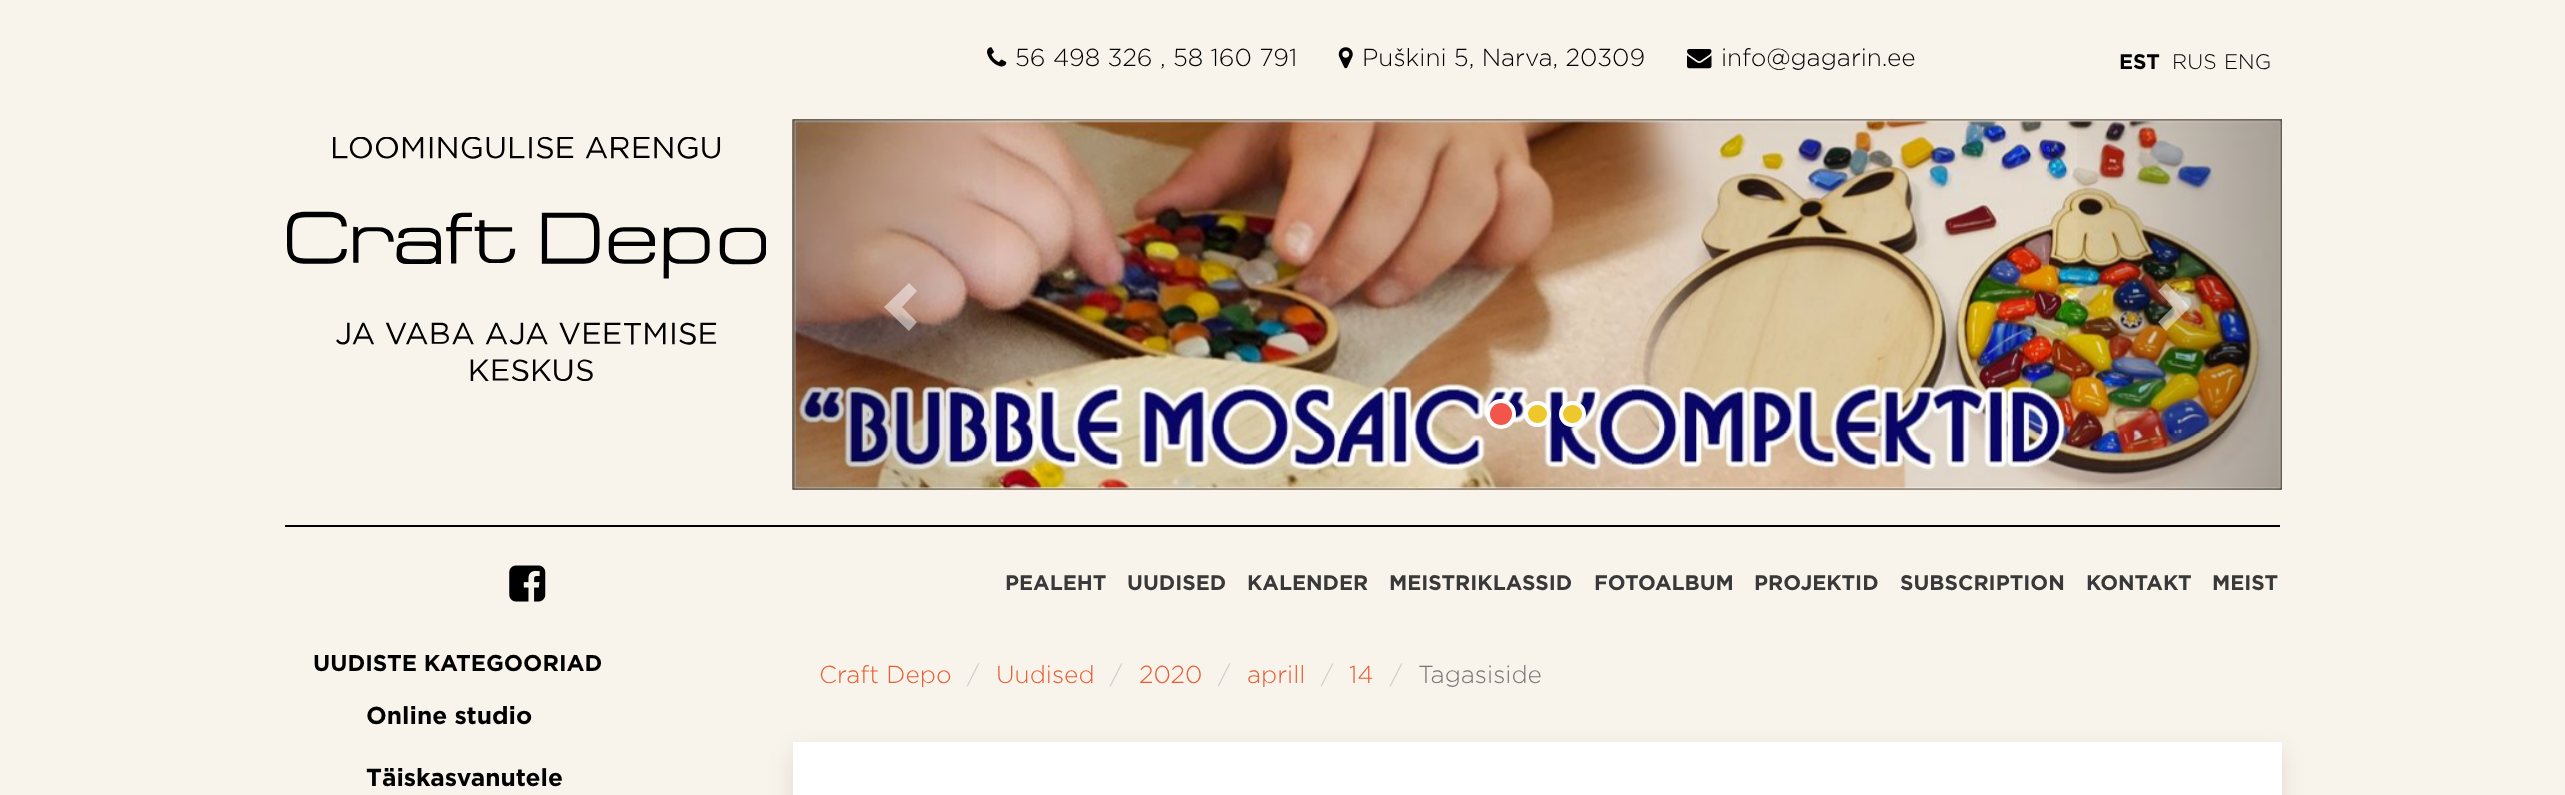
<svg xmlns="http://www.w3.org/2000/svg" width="2565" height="795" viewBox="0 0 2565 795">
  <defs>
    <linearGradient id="g1" gradientUnits="userSpaceOnUse" x1="793" y1="305" x2="1015" y2="305"><stop offset="0" stop-color="#000" stop-opacity="0.25"/><stop offset="1" stop-color="#000" stop-opacity="0"/></linearGradient>
    <linearGradient id="g2" gradientUnits="userSpaceOnUse" x1="2058" y1="305" x2="2282" y2="305"><stop offset="0" stop-color="#000" stop-opacity="0"/><stop offset="1" stop-color="#000" stop-opacity="0.25"/></linearGradient>
  </defs>
  <rect width="100%" height="100%" fill="#f8f4ec"/>
  <image x="987" y="47" width="20" height="20" href="img/1.png"/>
  <image x="1338" y="47" width="15" height="22" href="img/2.png"/>
  <image x="1687" y="49" width="25" height="20" href="img/3.png"/>
  <image x="287" y="137" width="479" height="245" href="img/4.png"/>
  <image x="792" y="119" width="1490" height="371" href="img/5.png"/>
  <path d="M793 119h203v371H793z" fill="url(#g1)"/>
  <path d="M917 291L902 307L917 322L909 331L884 307L909 283Z" fill="#ffffff80"/>
  <circle cx="1501" cy="414" r="13" fill="#f25549" stroke="#fff" stroke-width="4"/>
  <rect x="1526" y="403" width="23" height="22" rx="11" fill="#edc72b" stroke="#fff" stroke-width="4"/>
  <rect x="1561" y="403" width="23" height="22" rx="11" fill="#edc72b" stroke="#fff" stroke-width="4"/>
  <path d="M2077 119h205v371H2077z" fill="url(#g2)"/>
  <path d="M2190 307L2166 331L2158 322L2173 307L2158 291L2166 283Z" fill="#ffffff80"/>
  <path d="M285 525h1995v2H285z" fill="#000"/>
  <image x="509" y="565" width="37" height="37" href="img/6.png"/>
  <path d="M793 751h1489v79H793z" fill="#0000001a" filter="blur(11.5px)"/>
  <path d="M793 742h1489v53H793z" fill="#fff"/>
  <g font-family="Gotham" font-size="24.5" font-weight="300" fill="#000">
    <text x="1015" y="66">56 498 326 , 58 160 791</text>
    <text x="1362" y="66">Puškini 5, Narva, 20309</text>
    <text x="1721" y="66">info@gagarin.ee</text>
  </g>
  <text x="2119" y="69" font-family="Gotham" font-size="21" font-weight="bold" fill="#000">EST</text>
  <g font-family="Gotham" font-size="21" font-weight="300" fill="#000">
    <text x="2172" y="69">RUS</text>
    <text x="2224" y="69">ENG</text>
  </g>
  <g font-family="Gotham" font-size="21" font-weight="bold" fill="#393939">
    <text x="1005" y="590">PEALEHT</text>
    <text x="1127" y="590">UUDISED</text>
    <text x="1247" y="590">КALENDER</text>
    <text x="1389" y="590">MEISTRIKLASSID</text>
    <text x="1594" y="590">FOTOALBUM</text>
    <text x="1754" y="590">PROJEKTID</text>
    <text x="1900" y="590">SUBSCRIPTION</text>
    <text x="2086" y="590">KONTAKT</text>
    <text x="2212" y="590">MEIST</text>
  </g>
  <text x="313" y="671" font-family="Gotham" font-size="22.75" font-weight="bold" fill="#000">UUDISTE KATEGOORIAD</text>
  <g font-family="Gotham" font-size="24.5" font-weight="bold" fill="#000">
    <text x="366" y="724">Online studio</text>
    <text x="366" y="786">Täiskasvanutele</text>
  </g>
  <text x="819" y="683" font-family="Gotham" font-size="24.5" font-weight="300" fill="#e85d33">Craft Depo</text>
  <text x="967" y="683" font-family="Gotham" font-size="24.5" font-weight="300" fill="#ccc">/</text>
  <text x="996" y="683" font-family="Gotham" font-size="24.5" font-weight="300" fill="#e85d33">Uudised</text>
  <text x="1110" y="683" font-family="Gotham" font-size="24.5" font-weight="300" fill="#ccc">/</text>
  <text x="1139" y="683" font-family="Gotham" font-size="24.5" font-weight="300" fill="#e85d33">2020</text>
  <text x="1218" y="683" font-family="Gotham" font-size="24.5" font-weight="300" fill="#ccc">/</text>
  <text x="1247" y="683" font-family="Gotham" font-size="24.5" font-weight="300" fill="#e85d33">aprill</text>
  <text x="1321" y="683" font-family="Gotham" font-size="24.5" font-weight="300" fill="#ccc">/</text>
  <text x="1349" y="683" font-family="Gotham" font-size="24.5" font-weight="300" fill="#e85d33">14</text>
  <text x="1390" y="683" font-family="Gotham" font-size="24.5" font-weight="300" fill="#ccc">/</text>
  <text x="1418" y="683" font-family="Gotham" font-size="24.5" font-weight="300" fill="#777">Tagasiside</text>
</svg>
